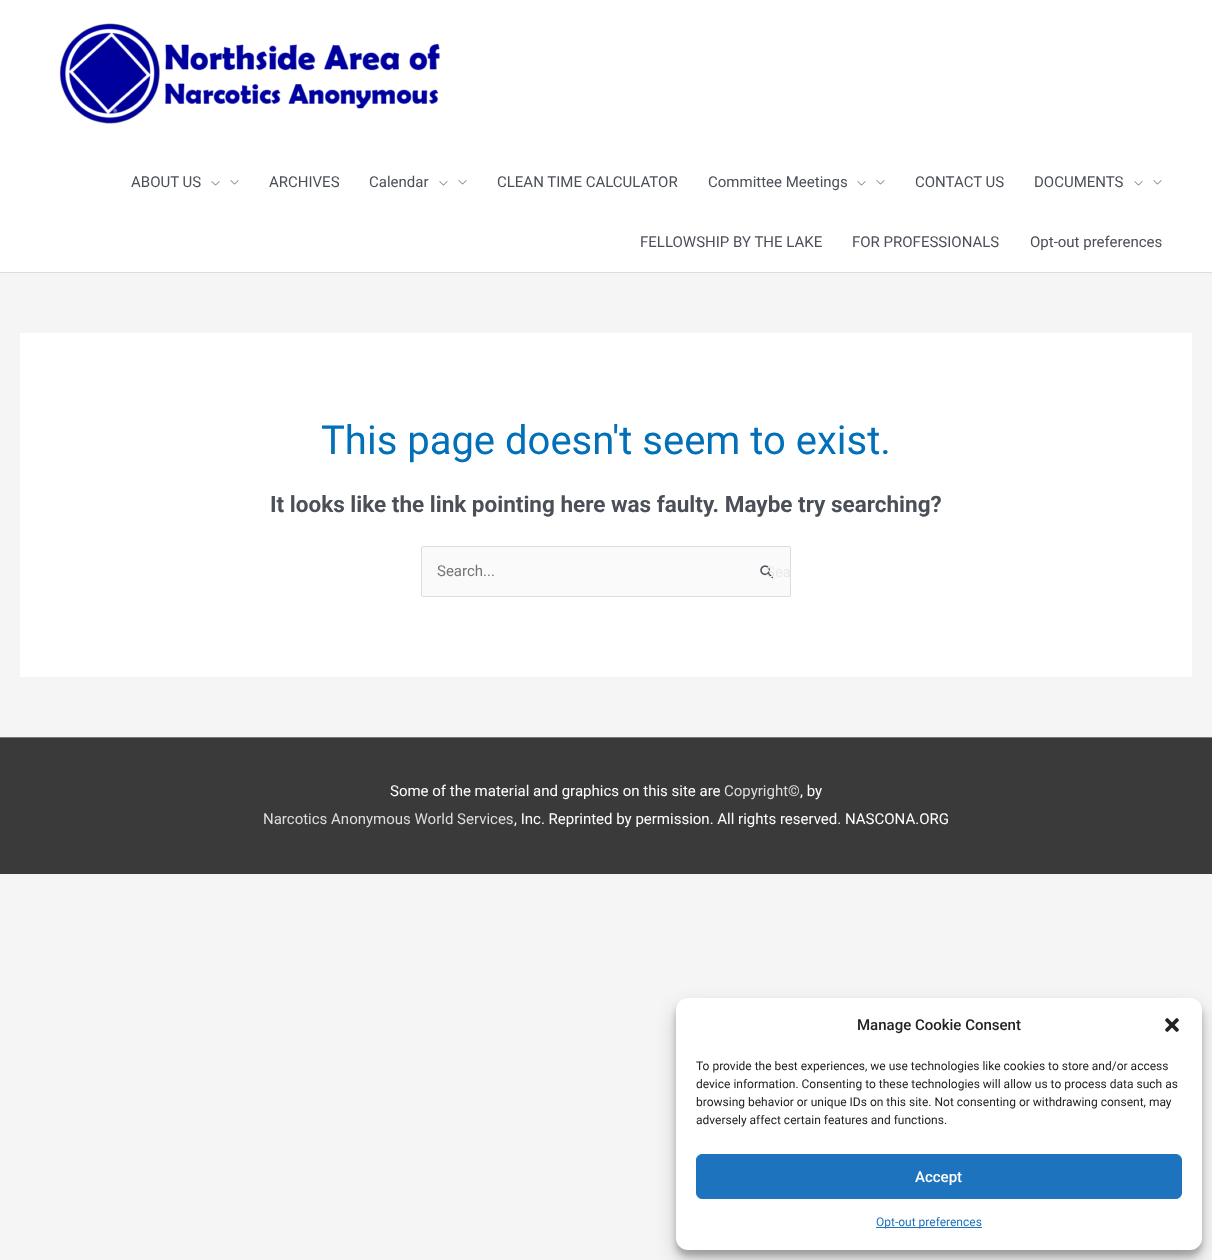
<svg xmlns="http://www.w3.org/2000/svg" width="1212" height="1260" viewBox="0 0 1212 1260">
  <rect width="100%" height="100%" fill="#f5f5f5"/>
  <path d="M0 0h1212v272H0z" fill="#fff"/>
  <path d="M0 272h1212v1H0z" fill="#ddd"/>
  <image x="59" y="23" width="381" height="101" href="img/1.png"/>
  <image x="211" y="181" width="9" height="5" href="img/2.png"/>
  <image x="230" y="180" width="9" height="5" href="img/2.png"/>
  <image x="439" y="181" width="9" height="5" href="img/2.png"/>
  <image x="458" y="180" width="9" height="5" href="img/2.png"/>
  <image x="857" y="181" width="9" height="5" href="img/2.png"/>
  <image x="876" y="180" width="9" height="5" href="img/2.png"/>
  <image x="1134" y="181" width="9" height="5" href="img/2.png"/>
  <image x="1153" y="180" width="9" height="5" href="img/2.png"/>
  <path d="M20 333h1172v344H20z" fill="#fff"/>
  <rect x="421.5" y="546.5" width="369" height="50" rx="1.5" fill="#fafafa" stroke="#ddd"/>
  <image x="760" y="565" width="14" height="14" href="img/3.png"/>
  <path d="M0 737h1212v1H0z" fill="#7a7a7a"/>
  <path d="M0 738h1212v136H0z" fill="#3a3a3a"/>
  <rect x="676" y="1004" width="526" height="252" rx="12" fill="#0000003b" filter="blur(3px)"/>
  <rect x="676" y="1008" width="526" height="252" rx="12" fill="#00000030" filter="blur(10px)"/>
  <rect x="676" y="998" width="526" height="252" rx="12" fill="#fff"/>
  <image x="1165" y="1018" width="14" height="14" href="img/4.png"/>
  <rect x="696.5" y="1154.5" width="485" height="44" rx="5.5" fill="#1e73be" stroke="#1e73be"/>
  <path d="M876 1227h106v1H876z" fill="#1e73be"/>
  <g font-family="Roboto" font-size="15" fill="#4b4f58">
    <text x="131" y="187">ABOUT US</text>
    <text x="269" y="187">ARCHIVES</text>
    <text x="369" y="187">Calendar</text>
    <text x="497" y="187">CLEAN TIME CALCULATOR</text>
    <text x="708" y="187">Committee Meetings</text>
    <text x="915" y="187">CONTACT US</text>
    <text x="1034" y="187">DOCUMENTS</text>
    <text x="640" y="247">FELLOWSHIP BY THE LAKE</text>
    <text x="852" y="247">FOR PROFESSIONALS</text>
    <text x="1030" y="247">Opt-out preferences</text>
  </g>
  <text x="321" y="454" font-family="Roboto" font-size="40" fill="#0170b9">This page doesn't seem to exist.</text>
  <text x="270" y="512" font-family="Roboto" font-size="22.5" font-weight="bold" fill="#4b4f58">It looks like the link pointing here was faulty. Maybe try searching?</text>
  <text x="437" y="576" font-family="Roboto" font-size="15" fill="#757575">Search...</text>
  <text x="766" y="577" font-family="Roboto" font-size="15" fill="#e9eaeb">Sea</text>
  <text x="390" y="796" font-family="Roboto" font-size="15" fill="#fff">Some of the material and graphics on this site are</text>
  <text x="724" y="796" font-family="Roboto" font-size="15" fill="#ddd">Copyright©</text>
  <text x="800" y="796" font-family="Roboto" font-size="15" fill="#fff">, by</text>
  <text x="263" y="824" font-family="Roboto" font-size="15" fill="#ddd">Narcotics Anonymous World Services</text>
  <text x="514" y="824" font-family="Roboto" font-size="15" fill="#fff">, Inc. Reprinted by permission. All rights reserved. NASCONA.ORG</text>
  <text x="857" y="1030" font-family="Roboto" font-size="15" font-weight="500" fill="#222">Manage Cookie Consent</text>
  <g font-family="Roboto" font-size="12" fill="#222">
    <text x="696" y="1070">To provide the best experiences, we use technologies like cookies to store and/or access</text>
    <text x="696" y="1088">device information. Consenting to these technologies will allow us to process data such as</text>
    <text x="696" y="1106">browsing behavior or unique IDs on this site. Not consenting or withdrawing consent, may</text>
    <text x="696" y="1124">adversely affect certain features and functions.</text>
  </g>
  <text x="915" y="1182" font-family="Roboto" font-size="15" font-weight="500" fill="#fff">Accept</text>
  <text x="876" y="1226" font-family="Roboto" font-size="12" fill="#1e73be">Opt-out preferences</text>
</svg>
